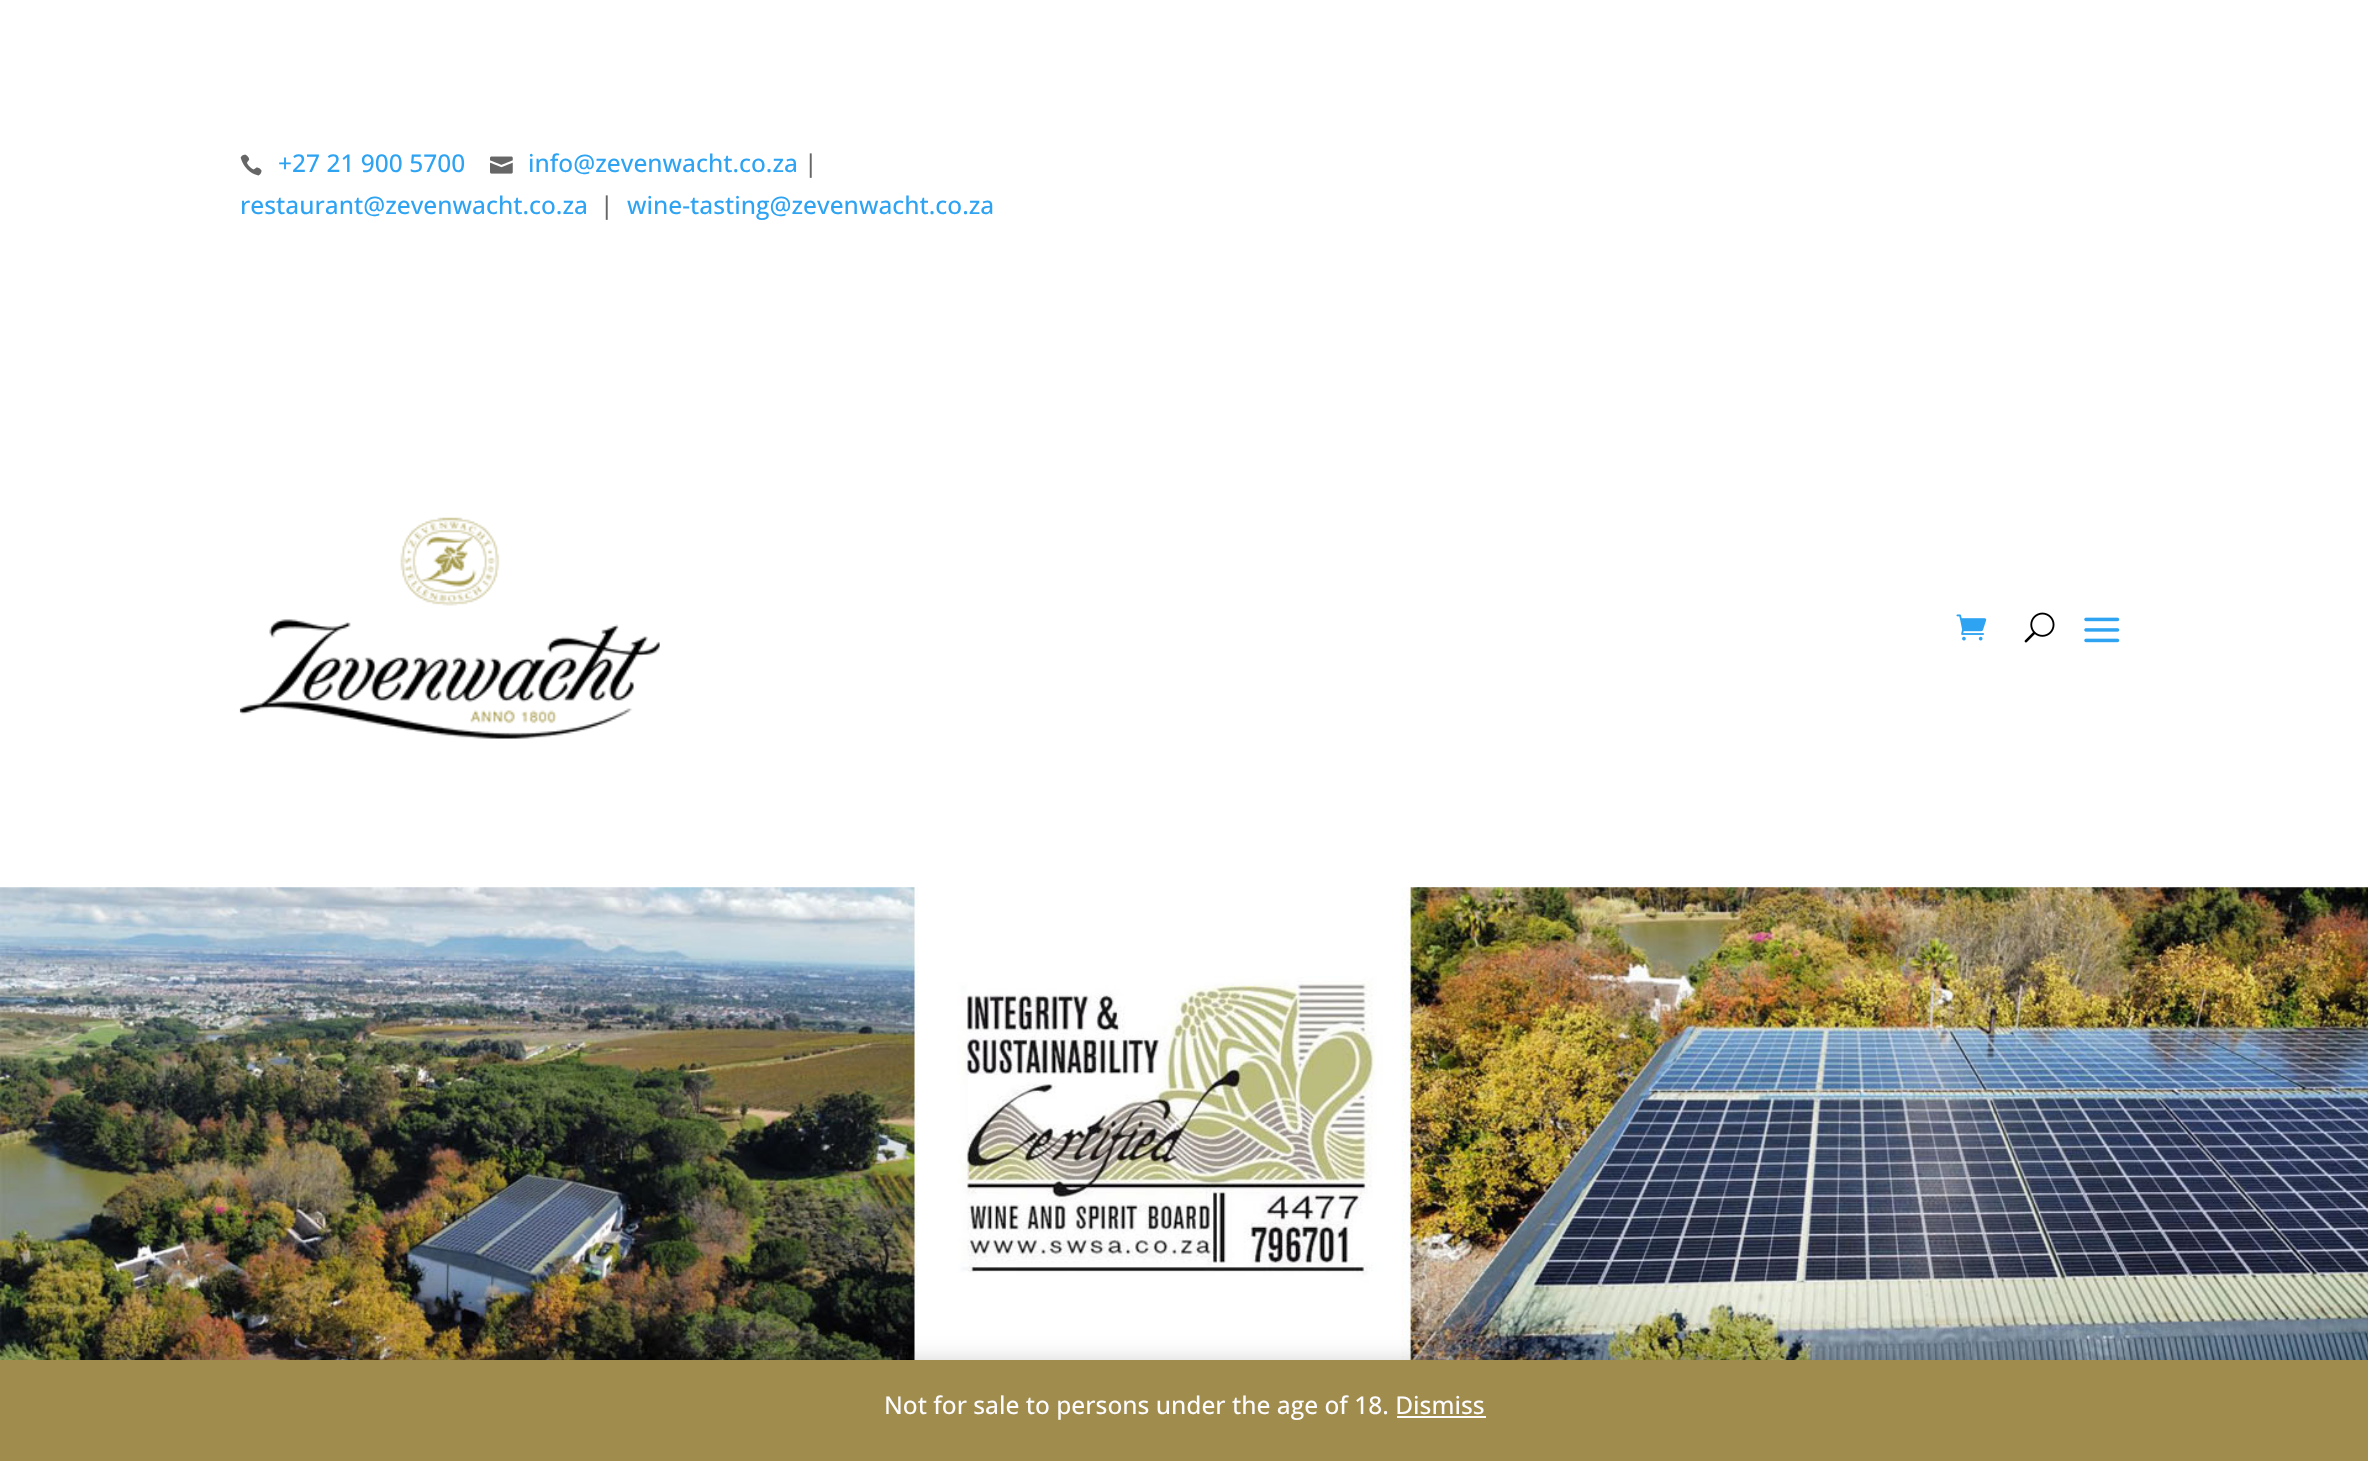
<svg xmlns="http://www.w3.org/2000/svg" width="2368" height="1461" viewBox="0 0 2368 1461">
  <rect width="100%" height="100%" fill="#fff"/>
  <image x="240" y="154" width="22" height="22" href="img/1.png"/>
  <image x="490" y="156" width="23" height="18" href="img/2.png"/>
  <image x="239" y="517" width="421" height="222" href="img/3.png"/>
  <image x="1956" y="614" width="31" height="27" href="img/4.png"/>
  <image x="2024" y="612" width="31" height="31" href="img/5.png"/>
  <image x="2084" y="617" width="36" height="26" href="img/6.png"/>
  <image x="0" y="887" width="2368" height="473" href="img/7.png"/>
  <path d="M0 1362h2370v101H0z" fill="#00000033" filter="blur(12px)"/>
  <path d="M0 1360h2368v101H0z" fill="#a08c4d"/>
  <path d="M1397 1416h89v2H1397z" fill="#fcfbfe"/>
  <g font-family="Open Sans" font-size="24.5" font-weight="500" fill="#2ea3f2">
    <text x="278" y="172">+27 21 900 5700</text>
    <text x="528" y="172">info@zevenwacht.co.za</text>
  </g>
  <text x="804" y="172" font-family="Open Sans" font-size="24.5" font-weight="500" fill="#666">|</text>
  <text x="240" y="214" font-family="Open Sans" font-size="24.5" font-weight="500" fill="#2ea3f2">restaurant@zevenwacht.co.za</text>
  <text x="600" y="214" font-family="Open Sans" font-size="24.5" font-weight="500" fill="#666">|</text>
  <text x="627" y="214" font-family="Open Sans" font-size="24.5" font-weight="500" fill="#2ea3f2">wine-tasting@zevenwacht.co.za</text>
  <text x="884" y="1414" font-family="Open Sans" font-size="24.5" font-weight="500" fill="#fcfbfe">Not for sale to persons under the age of 18. Dismiss</text>
</svg>
